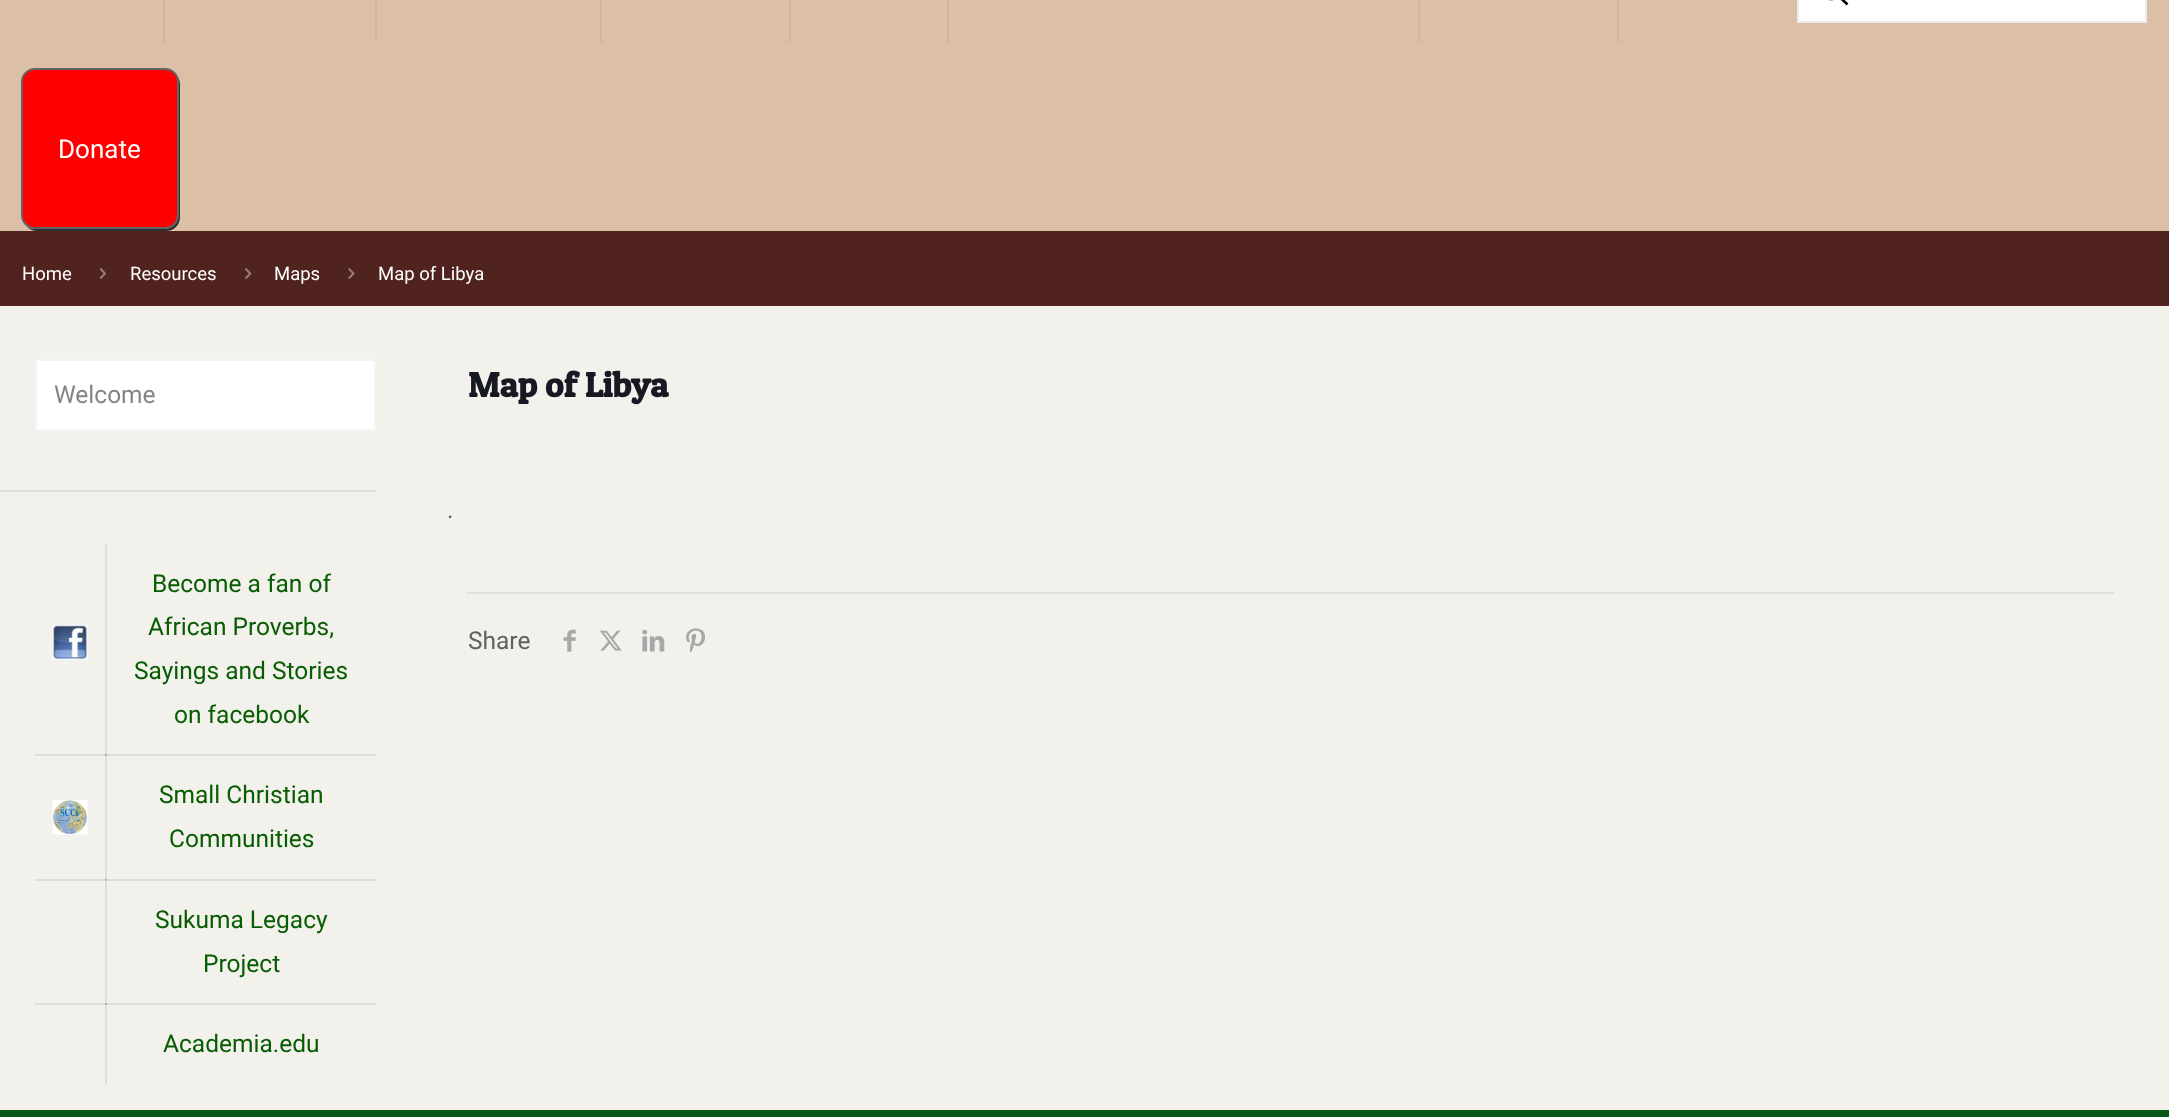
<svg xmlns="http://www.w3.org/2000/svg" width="2169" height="1117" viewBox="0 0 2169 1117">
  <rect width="100%" height="100%" fill="#f2f1ec"/>
  <path d="M35 754h72v2H35z" fill="#dfded9"/>
  <path d="M105 544h2v212H105z" fill="#dfded9"/>
  <path d="M105 754h271v2H105z" fill="#dfded9"/>
  <path d="M35 879h72v2H35z" fill="#dfded9"/>
  <path d="M105 754h2v126H105z" fill="#dfded9"/>
  <path d="M105 754h2v2H105z" fill="#aeada9"/>
  <path d="M105 879h271v2H105z" fill="#dfded9"/>
  <path d="M35 1003h72v2H35z" fill="#dfded9"/>
  <path d="M105 879h2v126H105z" fill="#dfded9"/>
  <path d="M105 880h2v1H105z" fill="#bdbcb8"/>
  <path d="M105 879h2v1H105z" fill="#aeada9"/>
  <path d="M105 1003h271v2H105z" fill="#dfded9"/>
  <path d="M0 0h2169v231H0z" fill="#dbbfa6"/>
  <path d="M1798 -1h348v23H1798z" fill="#fff" stroke="#ebebeb" stroke-width="2"/>
  <circle cx="1831" cy="-11.5" r="10.5" fill="none" stroke="#000" stroke-width="2.6"/>
  <path d="M1838.5-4L1847.5 4.5" fill="none" stroke="#000" stroke-width="2.6"/>
  <path d="M163 0h2v42H163z" fill="#d0b59e"/>
  <path d="M375 0h2v42H375z" fill="#d0b59e"/>
  <path d="M600 0h2v42H600z" fill="#d0b59e"/>
  <path d="M789 0h2v42H789z" fill="#d0b59e"/>
  <path d="M947 0h2v42H947z" fill="#d0b59e"/>
  <path d="M1418 0h2v42H1418z" fill="#d0b59e"/>
  <path d="M1617 0h2v42H1617z" fill="#d0b59e"/>
  <path d="M27 227C29 229 33 231 37 231H166C174 231 180 225 180 217V84C180 80 178 77 176 74C178 76 178 79 178 82V215C178 223 172 229 164 229H35C32 229 29 228 27 227Z" fill="#2f2f2f"/>
  <rect x="22" y="69" width="156" height="159" rx="13" fill="#f00" stroke="#626262" stroke-width="2"/>
  <path d="M0 231h2169v75H0z" fill="#51231e"/>
  <image x="99" y="268" width="7" height="11" href="img/1.png"/>
  <image x="245" y="268" width="7" height="11" href="img/2.png"/>
  <image x="348" y="268" width="7" height="11" href="img/3.png"/>
  <path d="M36 360h339v70H36z" fill="#fff" stroke="#f5f5f5" stroke-width="2"/>
  <path d="M0 490h376v2H0z" fill="#dfded9"/>
  <image x="52" y="624" width="36" height="36" href="img/4.png"/>
  <image x="52" y="799" width="36" height="36" href="img/5.png"/>
  <path d="M105 1003h2v82H105z" fill="#dfded9"/>
  <path d="M105 1003h2v2H105z" fill="#aeada9"/>
  <path d="M467 592h1647v2H467z" fill="#dfded9"/>
  <image x="563" y="629" width="13" height="23" href="img/6.png"/>
  <image x="600" y="630" width="22" height="21" href="img/7.png"/>
  <image x="642" y="629" width="23" height="23" href="img/8.png"/>
  <image x="686" y="628" width="19" height="25" href="img/9.png"/>
  <path d="M0 1110h2169v7H0z" fill="#06571a"/>
  <text x="58" y="158" font-family="Roboto" font-size="26" fill="#fff">Donate</text>
  <g font-family="Roboto" font-size="18.5" fill="#fff">
    <text x="22" y="280">Home</text>
    <text x="130" y="280">Resources</text>
    <text x="274" y="280">Maps</text>
    <text x="378" y="280">Map of Libya</text>
  </g>
  <text x="54" y="403" font-family="Roboto" font-size="24.5" fill="#858585">Welcome</text>
  <g font-family="Roboto" font-size="24.5" fill="#085d03">
    <text x="152" y="592">Become a fan of</text>
    <text x="148" y="635">African Proverbs,</text>
    <text x="134" y="679">Sayings and Stories</text>
    <text x="174" y="723">on facebook</text>
    <text x="159" y="803">Small Christian</text>
    <text x="169" y="847">Communities</text>
    <text x="155" y="928">Sukuma Legacy</text>
    <text x="203" y="972">Project</text>
    <text x="163" y="1052">Academia.edu</text>
  </g>
  <text x="468" y="397" font-family="Patua One" font-size="35" font-weight="bold" fill="#161922">Map of Libya</text>
  <g font-family="Roboto" font-size="24.5" fill="#626262">
    <text x="447" y="518">.</text>
    <text x="468" y="649">Share</text>
  </g>
</svg>
